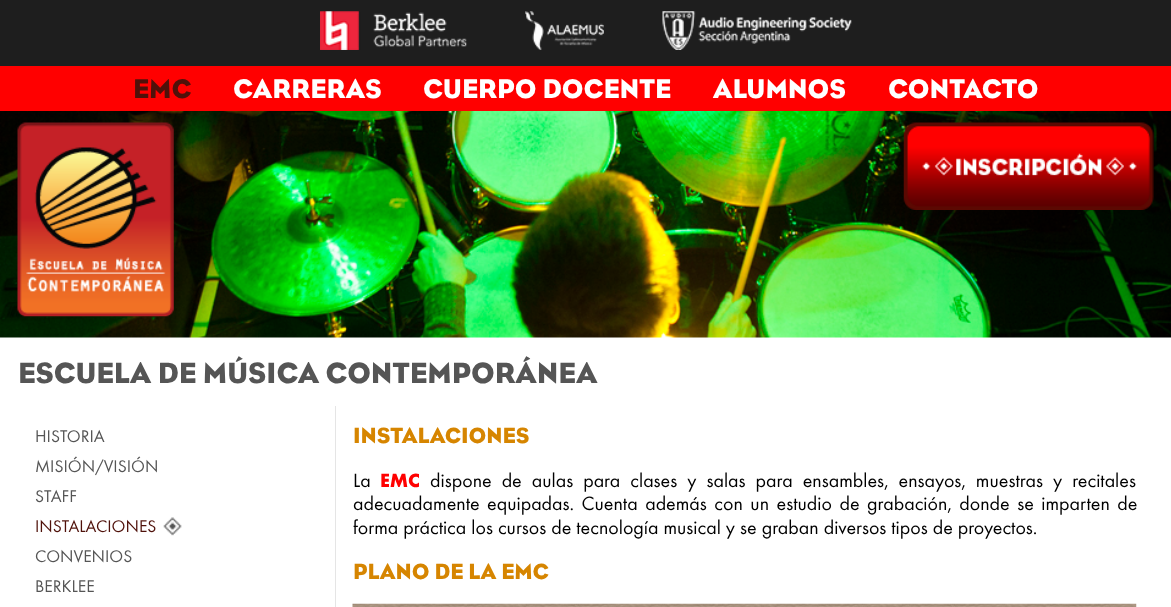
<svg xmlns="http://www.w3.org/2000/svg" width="1171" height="607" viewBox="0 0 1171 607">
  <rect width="100%" height="100%" fill="#fff"/>
  <image x="0" y="111" width="1171" height="227" href="img/1.png"/>
  <path d="M0 0h1171v66H0z" fill="#1e1e1e"/>
  <image x="320" y="11" width="147" height="39" href="img/2.png"/>
  <image x="525" y="11" width="79" height="39" href="img/3.png"/>
  <image x="662" y="11" width="190" height="39" href="img/4.png"/>
  <path d="M0 66h1171v45H0z" fill="#f00"/>
  <image x="17" y="122" width="157" height="195" href="img/5.png"/>
  <image x="903" y="122" width="251" height="88" href="img/6.png"/>
  <path d="M335 406h1v201H335z" fill="#e5e5e5"/>
  <image x="163" y="517" width="19" height="19" href="img/7.png"/>
  <image x="352" y="603" width="785" height="4" href="img/8.png"/>
  <text x="133" y="98" font-family="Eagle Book" font-size="27.5" fill="#4f110a">EMC</text>
  <g font-family="Eagle Book" font-size="27.5" fill="#fff">
    <text x="233" y="98">CARRERAS</text>
    <text x="423" y="98">CUERPO DOCENTE</text>
    <text x="713" y="98">ALUMNOS</text>
    <text x="888" y="98">CONTACTO</text>
  </g>
  <text x="18" y="383" font-family="Eagle Book" font-size="30" fill="#555">ESCUELA DE MÚSICA CONTEMPORÁNEA</text>
  <g font-family="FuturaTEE" font-size="17.5" fill="#555">
    <text x="35" y="442">HISTORIA</text>
    <text x="35" y="472">MISIÓN/VISIÓN</text>
    <text x="35" y="502">STAFF</text>
  </g>
  <text x="35" y="532" font-family="FuturaTEE" font-size="17.5" fill="#4f110a">INSTALACIONES</text>
  <g font-family="FuturaTEE" font-size="17.5" fill="#555">
    <text x="35" y="562">CONVENIOS</text>
    <text x="35" y="592">BERKLEE</text>
  </g>
  <text x="353" y="443" font-family="Eagle Book" font-size="22.5" fill="#d68500">INSTALACIONES</text>
  <text x="353" y="487" font-family="FuturaTEE" font-size="20" fill="#000">La</text>
  <text x="380" y="487" font-family="FuturaTEE" font-size="20" font-weight="bold" fill="#f00">EMC</text>
  <g font-family="FuturaTEE" font-size="20" fill="#000">
    <text x="430" y="487" word-spacing="5">dispone de aulas para clases y salas para ensambles, ensayos, muestras y recitales</text>
    <text x="353" y="510" word-spacing="2.5">adecuadamente equipadas. Cuenta además con un estudio de grabación, donde se imparten de</text>
    <text x="353" y="534">forma práctica los cursos de tecnología musical y se graban diversos tipos de proyectos.</text>
  </g>
  <text x="353" y="579" font-family="Eagle Book" font-size="22.5" fill="#d68500">PLANO DE LA EMC</text>
</svg>
